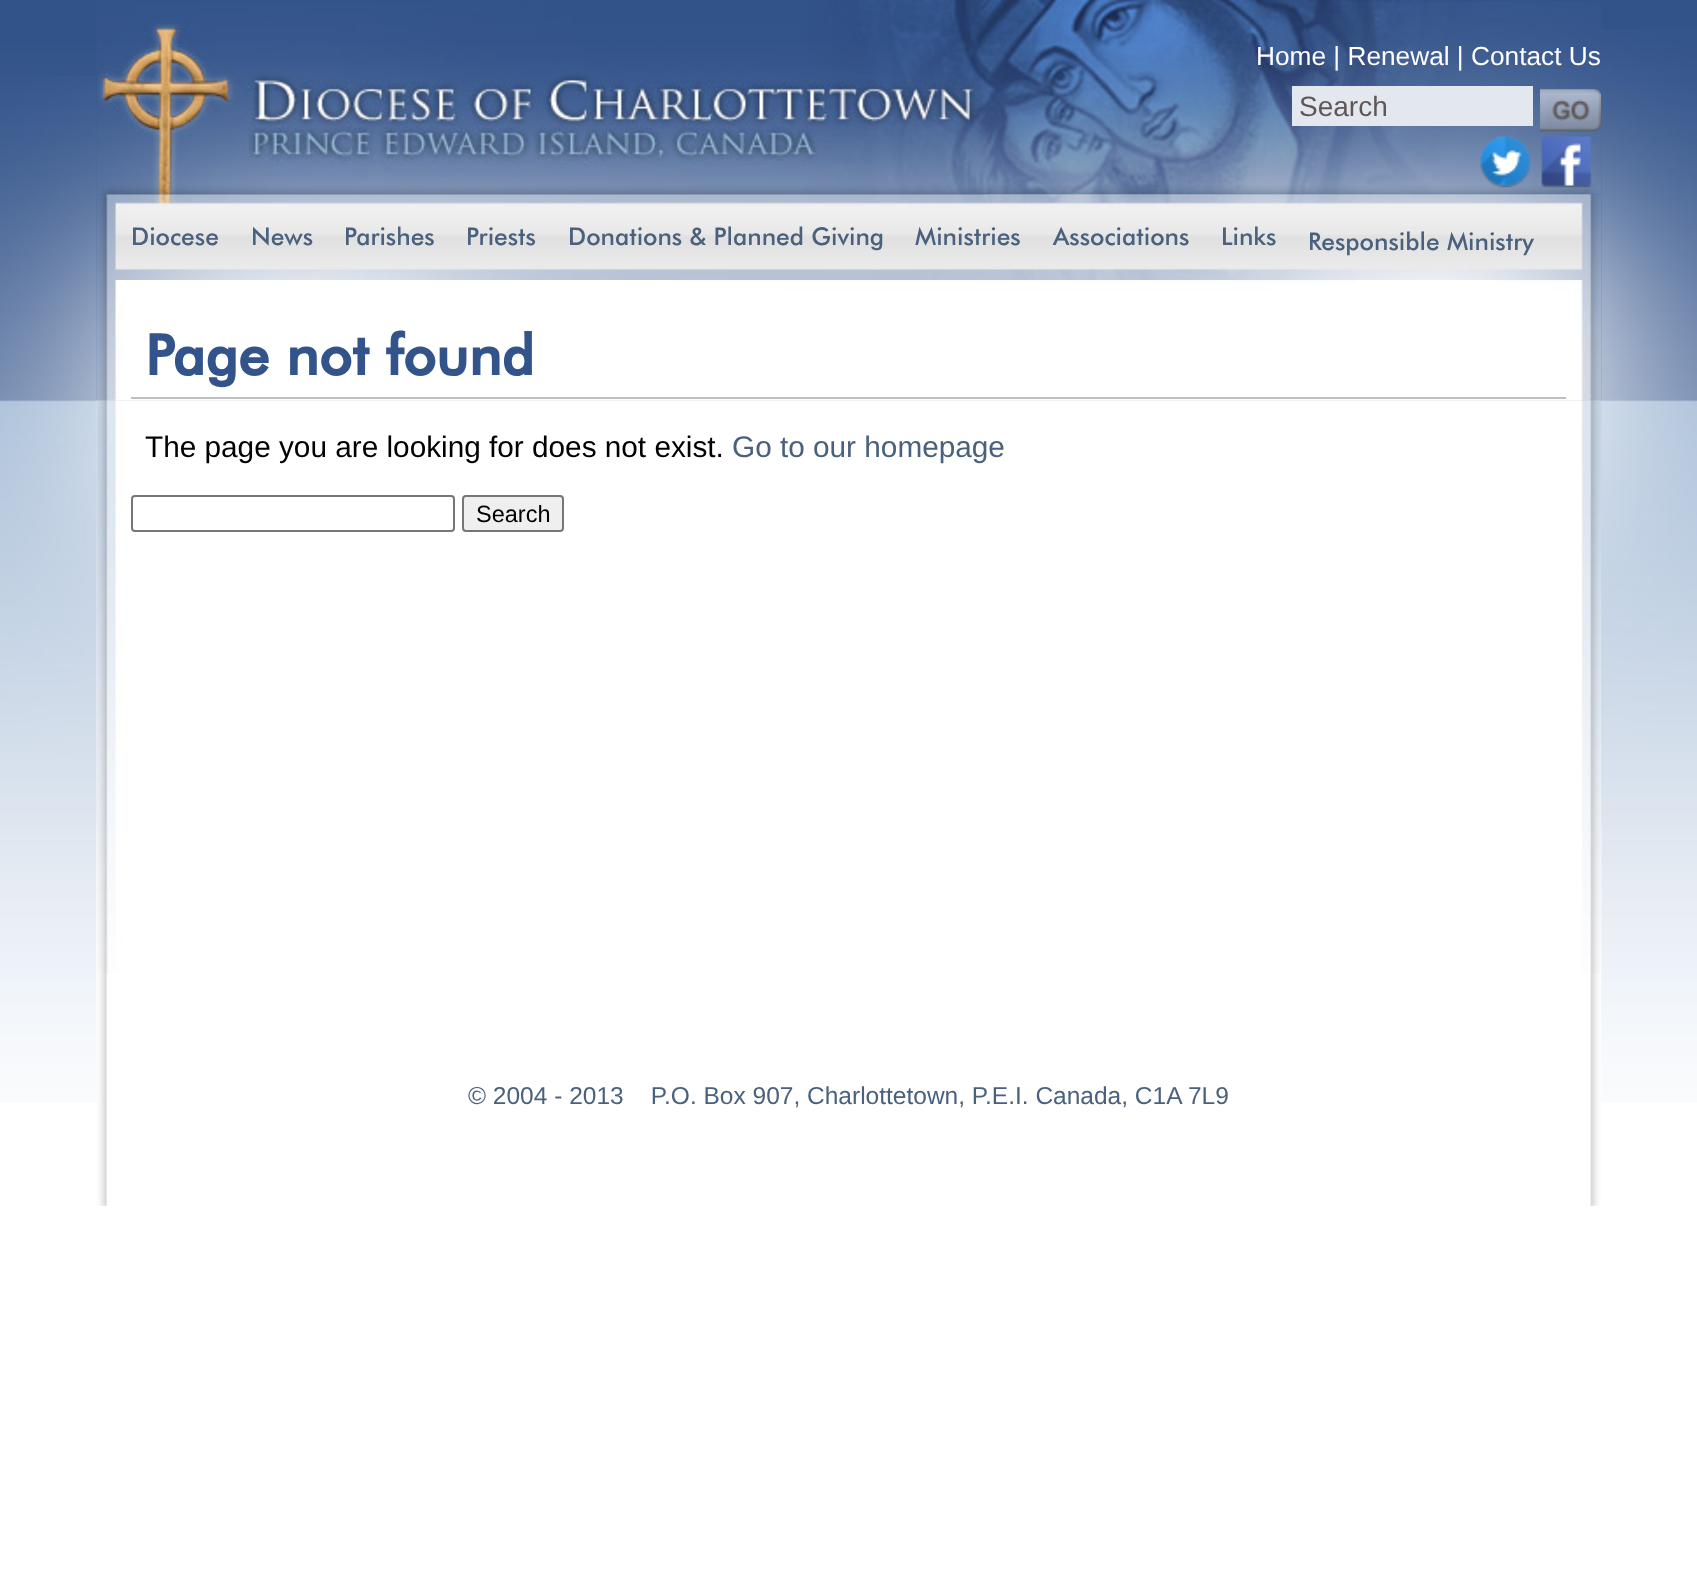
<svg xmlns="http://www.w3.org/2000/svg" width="1697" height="1591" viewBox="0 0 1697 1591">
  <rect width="100%" height="100%" fill="#fff"/>
  <image x="0" y="0" width="1697" height="1102" href="img/1.png"/>
  <image x="96" y="0" width="1506" height="195" href="img/3.png"/>
  <image x="96" y="194" width="1506" height="86" href="img/9.png"/>
  <image x="96" y="280" width="1506" height="121" href="img/10.png"/>
  <image x="96" y="400" width="1506" height="806" href="img/11.png"/>
  <image x="96" y="400" width="1506" height="573" href="img/12.png"/>
  <image x="0" y="76" width="97" height="750" href="img/2.png"/>
  <image x="103" y="24" width="886" height="171" href="img/4.png"/>
  <path d="M1292 86h241v40H1292z" fill="#e3e7ee"/>
  <image x="1540" y="89" width="62" height="43" href="img/5.png"/>
  <image x="1480" y="136" width="51" height="52" href="img/6.png"/>
  <image x="1541" y="136" width="51" height="52" href="img/7.png"/>
  <image x="1601" y="29" width="96" height="797" href="img/8.png"/>
  <path d="M131 397h1435v2H131z" fill="#bfbfbf"/>
  <rect x="132" y="496" width="322" height="35" rx="3" fill="none" stroke="#767676" stroke-width="2"/>
  <rect x="463" y="496" width="100" height="35" rx="3" fill="#efefef" stroke="#767676" stroke-width="2"/>
  <text x="1256" y="65" font-family="Liberation Sans" font-size="26.25" fill="#fff">Home | Renewal | Contact Us</text>
  <text x="1299" y="116" font-family="Liberation Sans" font-size="28" fill="#5f5757">Search</text>
  <g font-family="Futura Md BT" font-size="24.5" font-weight="500" fill="#4a617d">
    <text x="131" y="245">Diocese</text>
    <text x="251" y="245">News</text>
    <text x="344" y="245">Parishes</text>
    <text x="466" y="245">Priests</text>
    <text x="568" y="245">Donations &amp; Planned Giving</text>
    <text x="915" y="245">Ministries</text>
    <text x="1053" y="245">Associations</text>
    <text x="1221" y="245">Links</text>
    <text x="1308" y="250">Responsible Ministry</text>
  </g>
  <text x="145" y="375" font-family="Futura Md BT" font-size="56" font-weight="bold" fill="#33548a">Page not found</text>
  <text x="145" y="457" font-family="Liberation Sans" font-size="29.75" fill="#000">The page you are looking for does not exist.</text>
  <text x="732" y="457" font-family="Liberation Sans" font-size="29.75" fill="#4a617d">Go to our homepage</text>
  <text x="476" y="522" font-family="Liberation Sans" font-size="23.5" fill="#000">Search</text>
  <text x="468" y="1104" font-family="Liberation Sans" font-size="24.5" fill="#4a617d" xml:space="preserve">© 2004 - 2013    P.O. Box 907, Charlottetown, P.E.I. Canada, C1A 7L9</text>
</svg>
